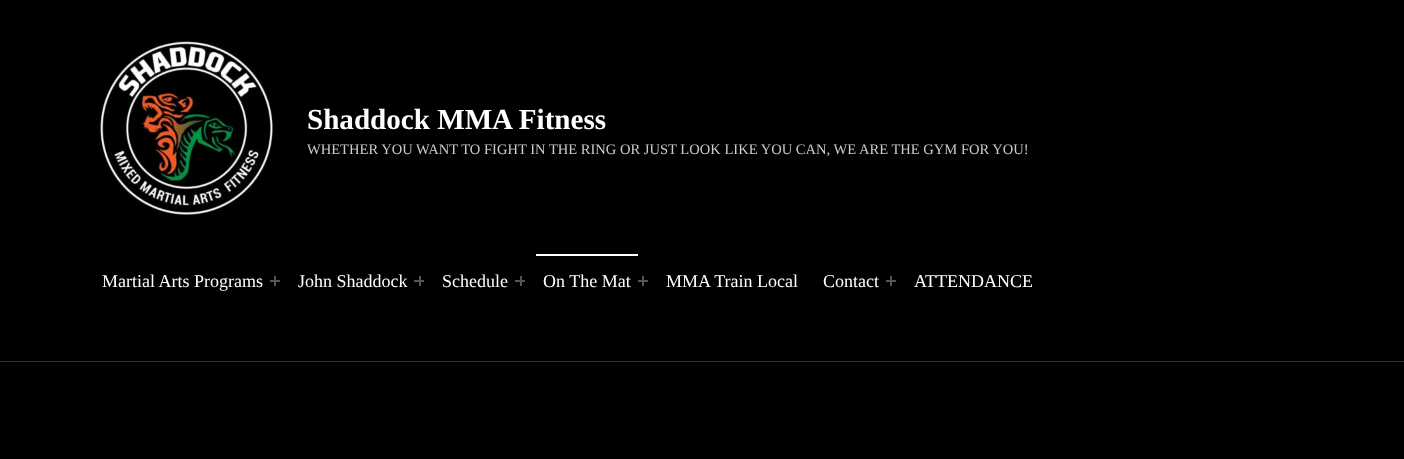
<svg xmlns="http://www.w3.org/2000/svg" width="1404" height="459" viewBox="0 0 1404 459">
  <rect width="100%" height="100%" fill="#000"/>
  <path d="M0 361h1404v1H0z" fill="#333"/>
  <image x="100" y="41" width="173" height="175" href="img/1.png"/>
  <path d="M270 280h10v2H270z" fill="#545454"/>
  <path d="M274 276h2v10H274z" fill="#545454"/>
  <path d="M414 280h10v2H414z" fill="#545454"/>
  <path d="M419 276h2v10H419z" fill="#545454"/>
  <path d="M515 280h10v2H515z" fill="#545454"/>
  <path d="M520 276h2v10H520z" fill="#545454"/>
  <path d="M536 254h102v2H536z" fill="#fff"/>
  <path d="M638 280h10v2H638z" fill="#545454"/>
  <path d="M642 276h2v10H642z" fill="#545454"/>
  <path d="M886 280h10v2H886z" fill="#545454"/>
  <path d="M890 276h2v10H890z" fill="#545454"/>
  <text x="307" y="129" font-family="Liberation Serif" font-size="29.1" font-weight="bold" fill="#fff">Shaddock MMA Fitness</text>
  <text x="307" y="154" font-family="Liberation Serif" font-size="14.55" fill="#ccc">WHETHER YOU WANT TO FIGHT IN THE RING OR JUST LOOK LIKE YOU CAN, WE ARE THE GYM FOR YOU!</text>
  <g font-family="Liberation Serif" font-size="18" fill="#fff">
    <text x="102" y="287">Martial Arts Programs</text>
    <text x="298" y="287">John Shaddock</text>
    <text x="442" y="287">Schedule</text>
    <text x="543" y="287">On The Mat</text>
    <text x="666" y="287">MMA Train Local</text>
    <text x="823" y="287">Contact</text>
    <text x="914" y="287">ATTENDANCE</text>
  </g>
</svg>
